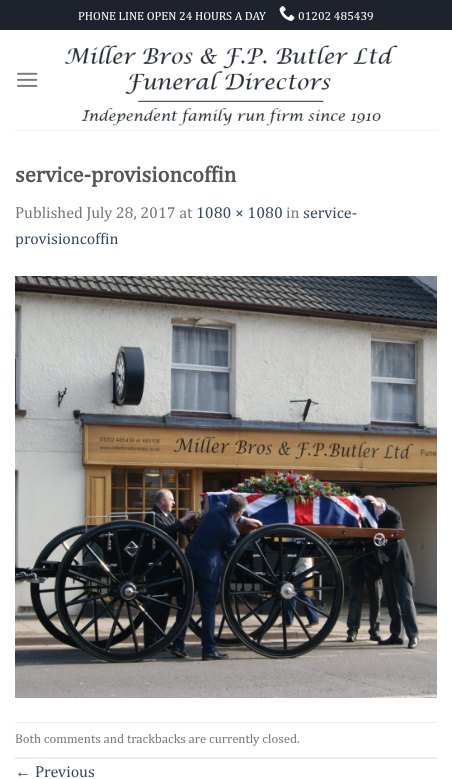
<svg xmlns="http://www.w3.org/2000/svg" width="452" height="779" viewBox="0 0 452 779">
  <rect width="100%" height="100%" fill="#fff"/>
  <path d="M0 0h452v30H0z" fill="#1e222c"/>
  <image x="279" y="6" width="16" height="15" href="img/1.png"/>
  <image x="17" y="72" width="21" height="15" href="img/2.png"/>
  <image x="64" y="45" width="334" height="81" href="img/3.png"/>
  <path d="M15 130h422v1H15z" fill="#f1f1f1"/>
  <image x="15" y="276" width="422" height="422" href="img/4.png"/>
  <path d="M15 722h422v1H15z" fill="#ececec"/>
  <path d="M15 757h422v2H15z" fill="#ececec"/>
  <g font-family="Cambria" font-size="12" fill="#fff">
    <text x="78" y="20">PHONE LINE OPEN 24 HOURS A DAY</text>
    <text x="298" y="20">01202 485439</text>
  </g>
  <text x="15" y="182" font-family="Cambria" font-size="22.5" font-weight="bold" fill="#555">service-provisioncoffin</text>
  <text x="15" y="218" font-family="Cambria" font-size="16" fill="#777">Published July 28, 2017 at</text>
  <text x="196" y="218" font-family="Cambria" font-size="16" fill="#334862">1080 × 1080</text>
  <text x="286" y="218" font-family="Cambria" font-size="16" fill="#777">in</text>
  <g font-family="Cambria" font-size="16" fill="#334862">
    <text x="303" y="218">service-</text>
    <text x="15" y="244">provisioncoffin</text>
  </g>
  <text x="15" y="743" font-family="Cambria" font-size="12.8" fill="#777">Both comments and trackbacks are currently closed.</text>
  <text x="15" y="777" font-family="Liberation Serif" font-size="16" fill="#334862">←</text>
  <text x="35" y="777" font-family="Cambria" font-size="16" fill="#334862">Previous</text>
</svg>
